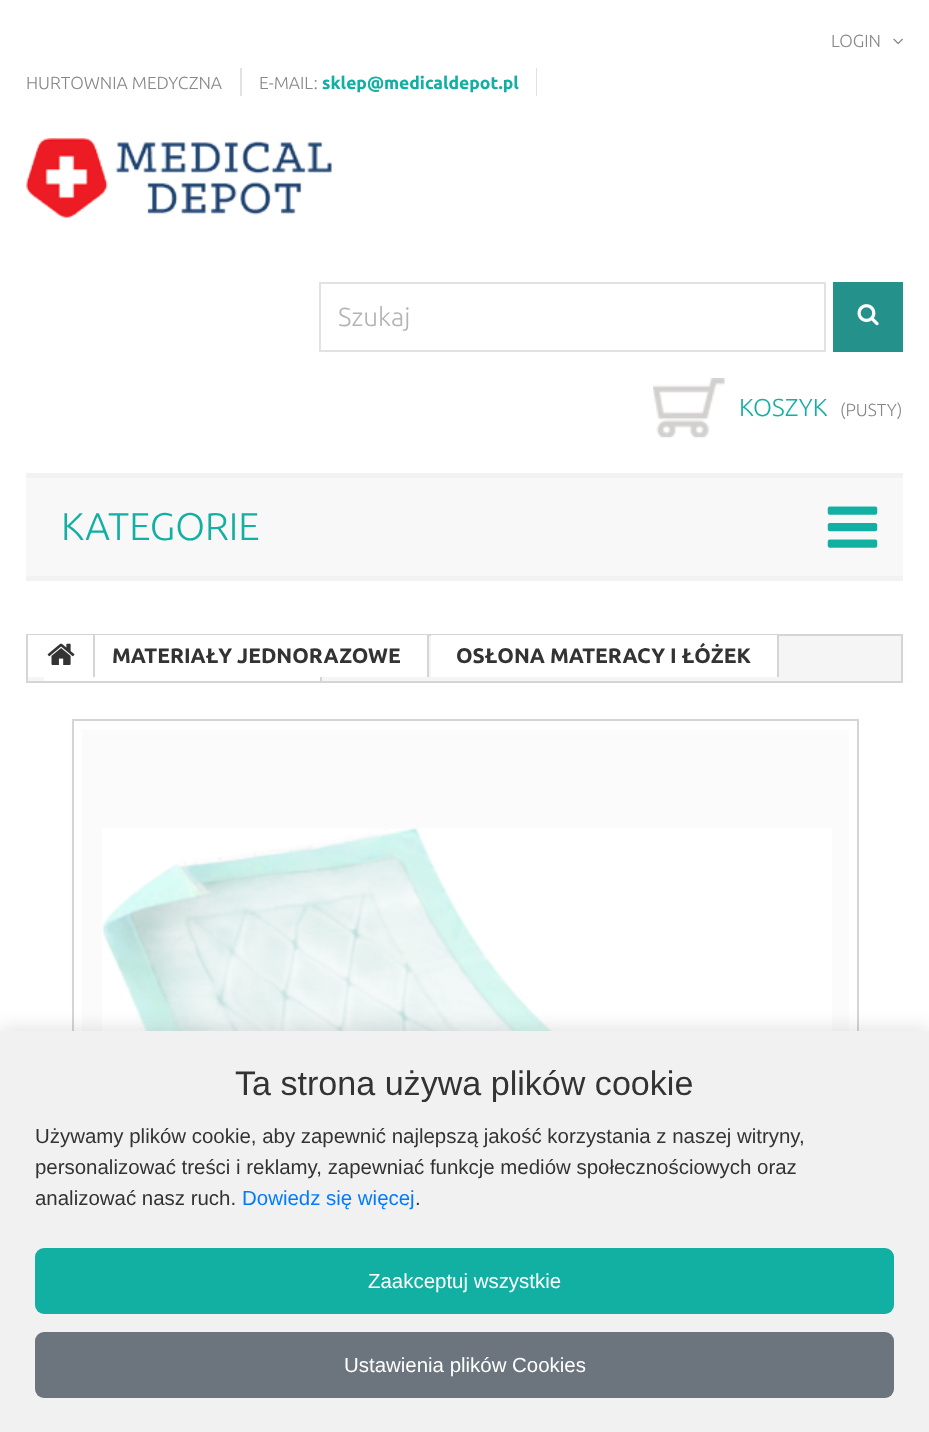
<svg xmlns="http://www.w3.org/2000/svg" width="929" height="1432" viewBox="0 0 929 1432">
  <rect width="100%" height="100%" fill="#fff"/>
  <image x="893" y="38" width="10" height="7" href="img/1.png"/>
  <path d="M240 68h2v28H240z" fill="#e2e2e2"/>
  <path d="M536 68h1v28H536z" fill="#e2e2e2"/>
  <image x="26" y="138" width="306" height="80" href="img/2.png"/>
  <path d="M320 283h505v68H320z" fill="none" stroke="#e2e2e2" stroke-width="2"/>
  <path d="M833 282h70v70H833z" fill="#24918a"/>
  <image x="857" y="304" width="22" height="22" href="img/3.png"/>
  <image x="653" y="378" width="72" height="60" href="img/4.png"/>
  <path d="M26 478h877v98H26z" fill="#f8f8f8"/>
  <path d="M26 473h877v5H26z" fill="#f2f2f2"/>
  <path d="M26 576h877v5H26z" fill="#f2f2f2"/>
  <image x="827" y="506" width="51" height="42" href="img/5.png"/>
  <path d="M27 635h875v47H27z" fill="#f5f5f5" stroke="#d6d4d4" stroke-width="2"/>
  <path d="M28 635h65v42H28z" fill="#fff"/>
  <path d="M93 635h2v42H93z" fill="#d6d4d4"/>
  <image x="47" y="643" width="28" height="22" href="img/6.png"/>
  <path d="M95 635h332v42H95z" fill="#fff"/>
  <path d="M427 635h2v42H427z" fill="#d6d4d4"/>
  <path d="M431 635h346v42H431z" fill="#fff"/>
  <path d="M777 635h2v42H777z" fill="#d6d4d4"/>
  <path d="M44 677h278v4H44z" fill="#fff"/>
  <path d="M320 677h2v4H320z" fill="#d6d4d4"/>
  <path d="M73 720h785v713H73z" fill="none" stroke="#d6d4d4" stroke-width="2"/>
  <path d="M82 730h767v301H82z" fill="#fbfbfb"/>
  <image x="102" y="828" width="730" height="203" href="img/7.png"/>
  <path d="M0 1027h929v403H0z" fill="#0000001a" filter="blur(9px)"/>
  <path d="M0 1031h929v401H0z" fill="#f1f1f1"/>
  <rect x="35" y="1248" width="859" height="66" rx="9" fill="#12afa3"/>
  <rect x="35" y="1332" width="859" height="66" rx="9" fill="#6c757d"/>
  <g font-family="Ubuntu" font-size="17.5" font-weight="300" fill="#888">
    <text x="831" y="47">LOGIN</text>
    <text x="26" y="89">HURTOWNIA MEDYCZNA</text>
    <text x="259" y="89">E-MAIL:</text>
  </g>
  <text x="322" y="89" font-family="Ubuntu" font-size="17.5" font-weight="bold" fill="#12afa3">sklep@medicaldepot.pl</text>
  <text x="338" y="326" font-family="Ubuntu" font-size="26" font-weight="300" fill="#b4b4b4">Szukaj</text>
  <text x="739" y="416" font-family="Ubuntu" font-size="24.5" font-weight="300" fill="#12afa3">KOSZYK</text>
  <text x="840" y="416" font-family="Ubuntu" font-size="17.5" font-weight="300" fill="#888">(PUSTY)</text>
  <text x="61" y="540" font-family="Ubuntu" font-size="38.5" font-weight="300" fill="#12afa3">KATEGORIE</text>
  <g font-family="Ubuntu" font-size="21" font-weight="bold" fill="#333">
    <text x="112" y="663">MATERIAŁY JEDNORAZOWE</text>
    <text x="456" y="663">OSŁONA MATERACY I ŁÓŻEK</text>
  </g>
  <text x="235" y="1095" font-family="Liberation Sans" font-size="34.1" fill="#333">Ta strona używa plików cookie</text>
  <g font-family="Liberation Sans" font-size="20.45" fill="#333">
    <text x="35" y="1143">Używamy plików cookie, aby zapewnić najlepszą jakość korzystania z naszej witryny,</text>
    <text x="35" y="1174">personalizować treści i reklamy, zapewniać funkcje mediów społecznościowych oraz</text>
    <text x="35" y="1205">analizować nasz ruch.</text>
  </g>
  <text x="242" y="1205" font-family="Liberation Sans" font-size="20.45" fill="#007bff">Dowiedz się więcej</text>
  <text x="415" y="1205" font-family="Liberation Sans" font-size="20.45" fill="#333">.</text>
  <g font-family="Liberation Sans" font-size="20.45" fill="#fff">
    <text x="368" y="1288">Zaakceptuj wszystkie</text>
    <text x="344" y="1372">Ustawienia plików Cookies</text>
  </g>
</svg>
